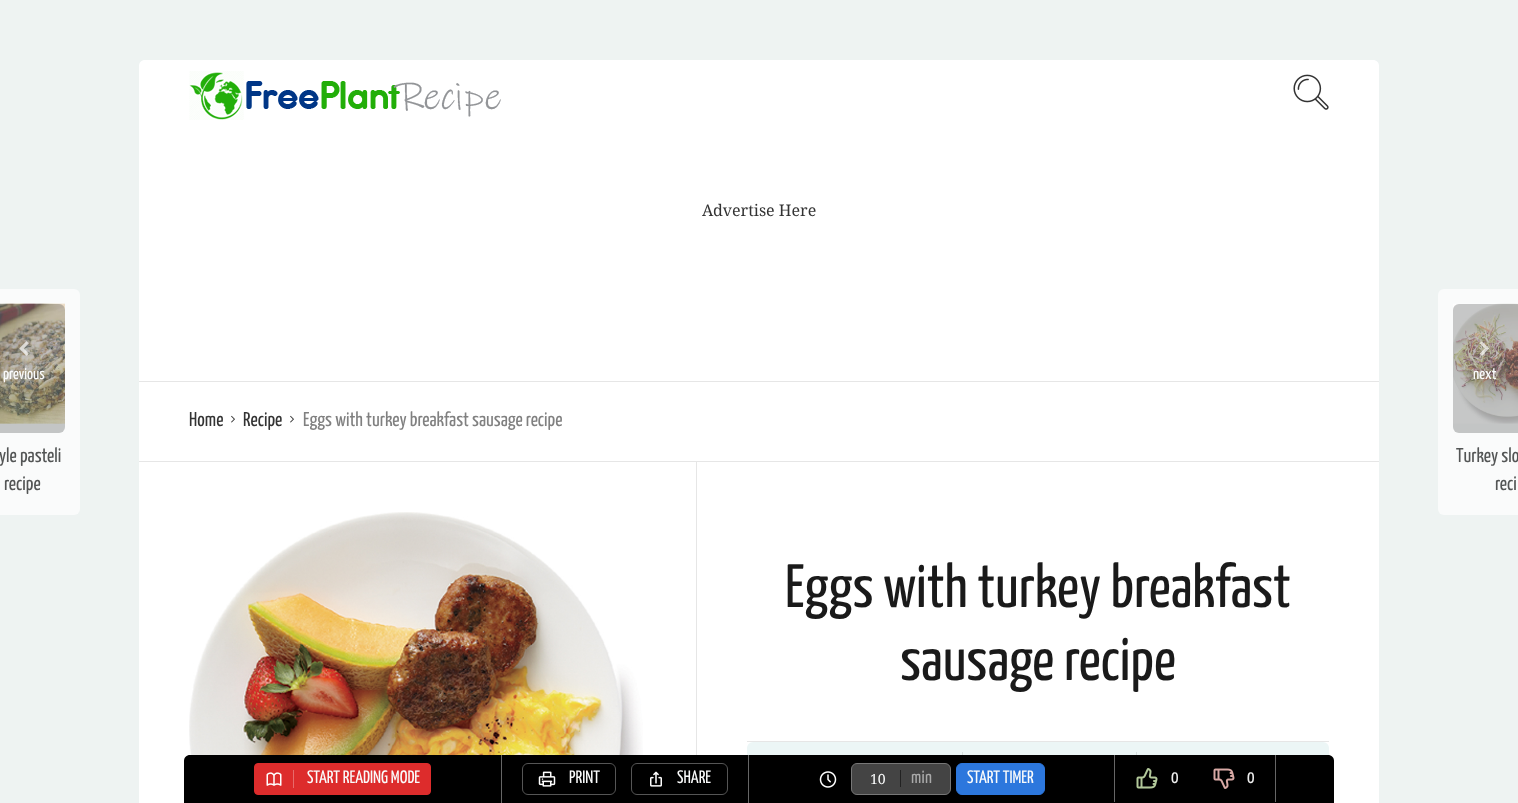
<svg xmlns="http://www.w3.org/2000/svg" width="1518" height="803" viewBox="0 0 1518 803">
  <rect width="100%" height="100%" fill="#eef3f2"/>
  <path d="M145 60H1373C1376.5 60 1379 62.5 1379 66V131H139V66C139 62.5 141.5 60 145 60Z" fill="#fff"/>
  <image x="189" y="71" width="312" height="49" href="img/1.png"/>
  <image x="1293" y="74" width="36" height="36" href="img/2.png"/>
  <path d="M139 131h1240v250H139z" fill="#fff"/>
  <rect x="-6" y="289" width="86" height="226" rx="6" fill="#fafbfb"/>
  <image x="0" y="303" width="65" height="121" href="img/3.png"/>
  <rect x="-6" y="304" width="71" height="129" rx="6" fill="#4749494d"/>
  <image x="19" y="341" width="10" height="15" href="img/4.png"/>
  <path d="M139 382h1240v79H139z" fill="#fff"/>
  <path d="M139 381h1240v1H139z" fill="#e6e6e6"/>
  <image x="231" y="415" width="4" height="8" href="img/5.png"/>
  <image x="290" y="415" width="4" height="8" href="img/5.png"/>
  <rect x="1438" y="289" width="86" height="226" rx="6" fill="#fafbfb"/>
  <image x="1453" y="303" width="65" height="121" href="img/6.png"/>
  <rect x="1453" y="304" width="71" height="129" rx="6" fill="#4749494d"/>
  <image x="1479" y="341" width="10" height="15" href="img/7.png"/>
  <path d="M139 462h1240v341H139z" fill="#fff"/>
  <path d="M139 461h1240v1H139z" fill="#e6e6e6"/>
  <path d="M696 462h1v293H696z" fill="#e6e6e6"/>
  <image x="189" y="512" width="454" height="244" href="img/8.png"/>
  <path d="M747 741h582v1H747z" fill="#e6e6e6"/>
  <rect x="747" y="742" width="582" height="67" rx="6" fill="#ecf6f6"/>
  <path d="M962 752h1v3H962z" fill="#d4dddd"/>
  <path d="M1136 752h1v3H1136z" fill="#d4dddd"/>
  <path d="M190 755H1328C1331.5 755 1334 757.5 1334 761V803H184V761C184 757.5 186.5 755 190 755Z" fill="#000"/>
  <rect x="254.5" y="763.5" width="176" height="31" rx="3.5" fill="#dd2c2c" stroke="#dd2c2c"/>
  <path d="M293 770h1v18H293z" fill="#e76b6b"/>
  <image x="266" y="772" width="16" height="14" href="img/9.png"/>
  <path d="M748 755h1v48H748z" fill="#666"/>
  <path d="M501 755h1v48H501z" fill="#666"/>
  <rect x="522.5" y="763.5" width="93" height="31" rx="5.5" fill="none" stroke="#555"/>
  <image x="538" y="771" width="18" height="16" href="img/10.png"/>
  <rect x="631.5" y="763.5" width="96" height="31" rx="5.5" fill="none" stroke="#555"/>
  <image x="650" y="771" width="12" height="16" href="img/11.png"/>
  <image x="819" y="771" width="18" height="17" href="img/12.png"/>
  <rect x="851.5" y="763.5" width="99" height="31" rx="5.5" fill="#444" stroke="#777"/>
  <path d="M900 770h1v17H900z" fill="#222"/>
  <rect x="956.5" y="763.5" width="88" height="31" rx="5.5" fill="#2c77dd" stroke="#2c77dd"/>
  <path d="M1275 755h1v47H1275z" fill="#666"/>
  <path d="M1114 755h1v47H1114z" fill="#666"/>
  <image x="1136" y="768" width="22" height="21" href="img/13.png"/>
  <image x="1213" y="768" width="22" height="21" href="img/14.png"/>
  <text x="702" y="216" font-family="Droid Serif" font-size="16" fill="#333">Advertise Here</text>
  <text x="3" y="379" font-family="Yanone Kaffeesatz" font-size="16" font-weight="200" fill="#fafbfb">previous</text>
  <g font-family="Yanone Kaffeesatz" font-size="20" font-weight="200" fill="#535555">
    <text x="-1" y="462">yle pasteli</text>
    <text x="4" y="490">recipe</text>
  </g>
  <g font-family="Yanone Kaffeesatz" font-size="20" font-weight="200" fill="#333">
    <text x="189" y="426">Home</text>
    <text x="243" y="426">Recipe</text>
  </g>
  <text x="303" y="426" font-family="Yanone Kaffeesatz" font-size="20" font-weight="200" fill="#808080">Eggs with turkey breakfast sausage recipe</text>
  <text x="1473" y="379" font-family="Yanone Kaffeesatz" font-size="16" font-weight="200" fill="#fafbfb">next</text>
  <g font-family="Yanone Kaffeesatz" font-size="20" font-weight="200" fill="#535555">
    <text x="1456" y="462">Turkey slo</text>
    <text x="1495" y="490">reci</text>
  </g>
  <g font-family="Yanone Kaffeesatz" font-size="61" font-weight="200" fill="#1a1a1a">
    <text x="785" y="607">Eggs with turkey breakfast</text>
    <text x="900" y="680">sausage recipe</text>
  </g>
  <g font-family="Yanone Kaffeesatz" font-size="18" font-weight="200" fill="#fafbfb">
    <text x="307" y="783">START READING MODE</text>
    <text x="569" y="783">PRINT</text>
    <text x="677" y="783">SHARE</text>
  </g>
  <text x="870" y="784" font-family="Droid Serif" font-size="14" fill="#fafbfb">10</text>
  <text x="911" y="783" font-family="Yanone Kaffeesatz" font-size="18" font-weight="200" fill="#aaa">min</text>
  <text x="967" y="783" font-family="Yanone Kaffeesatz" font-size="18" font-weight="200" fill="#fafbfb">START TIMER</text>
  <g font-family="Yanone Kaffeesatz" font-size="18" font-weight="200" fill="#eee">
    <text x="1171" y="783">0</text>
    <text x="1247" y="783">0</text>
  </g>
</svg>
